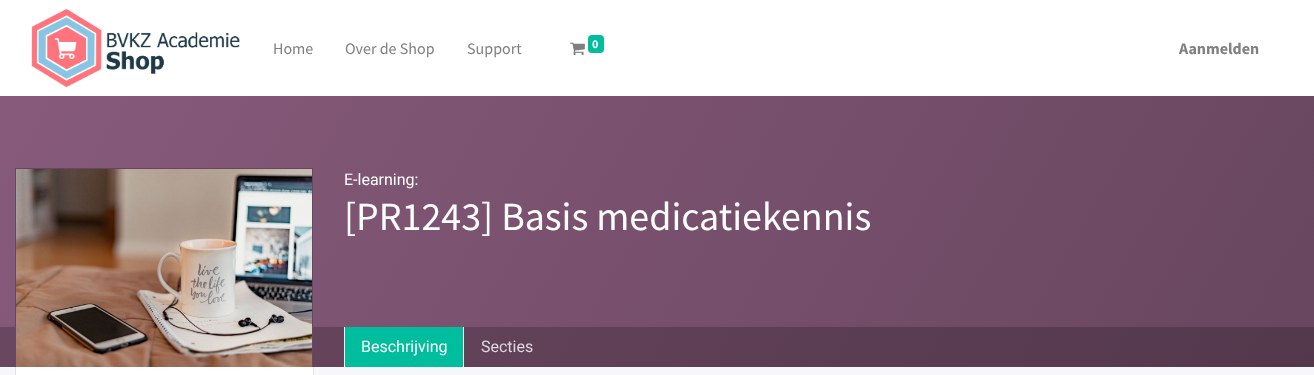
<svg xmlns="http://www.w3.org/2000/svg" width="1314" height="375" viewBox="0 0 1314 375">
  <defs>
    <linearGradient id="g1" gradientUnits="userSpaceOnUse" x1="106" y1="-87" x2="1208" y2="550"><stop offset="0" stop-color="#875a7b"/><stop offset="1" stop-color="#68465f"/></linearGradient>
    <linearGradient id="g2" gradientUnits="userSpaceOnUse" x1="106" y1="-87" x2="1208" y2="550"><stop offset="0" stop-color="#6c4862"/><stop offset="1" stop-color="#53384c"/></linearGradient>
  </defs>
  <rect width="100%" height="100%" fill="#fff"/>
  <image x="31" y="8" width="209" height="80" href="img/1.png"/>
  <image x="570" y="42" width="15" height="14" href="img/2.png"/>
  <rect x="588" y="35" width="16" height="18" rx="4" fill="#00bd9d"/>
  <path d="M0 96h1314v231H0z" fill="url(#g1)"/>
  <path d="M0 327h1314v40H0z" fill="url(#g2)"/>
  <path d="M15 168h298v1H15z" fill="#68465f"/>
  <path d="M312 168h1v199H312z" fill="#68465f"/>
  <path d="M15 168h1v159H15z" fill="#68465f"/>
  <image x="16" y="169" width="296" height="198" href="img/3.png"/>
  <path d="M0 367h1314v8H0z" fill="#f7f7fa"/>
  <path d="M345 327h118v40H345z" fill="#00bd9d"/>
  <path d="M463 327h1v40H463z" fill="#f7f7fa"/>
  <path d="M344 327h1v40H344z" fill="#f7f7fa"/>
  <path d="M16 367h297v8H16z" fill="#fff"/>
  <path d="M313 367h1v8H313z" fill="#dee2e6"/>
  <path d="M15 367h1v8H15z" fill="#dee2e6"/>
  <g font-family="Source Sans Pro" font-size="16" fill="#808080">
    <text x="273" y="54">Home</text>
    <text x="345" y="54">Over de Shop</text>
    <text x="467" y="54">Support</text>
  </g>
  <text x="592" y="48" font-family="Source Sans Pro" font-size="12" font-weight="bold" fill="#fff">0</text>
  <text x="1179" y="54" font-family="Source Sans Pro" font-size="16" font-weight="bold" fill="#808080">Aanmelden</text>
  <text x="344" y="185" font-family="Roboto" font-size="16" fill="#fff">E-learning:</text>
  <text x="344" y="230" font-family="Source Sans Pro" font-size="40" fill="#fff">[PR1243] Basis medicatiekennis</text>
  <text x="361" y="352" font-family="Roboto" font-size="16" fill="#fff">Beschrijving</text>
  <text x="481" y="352" font-family="Roboto" font-size="16" fill="#dfd9de">Secties</text>
</svg>
